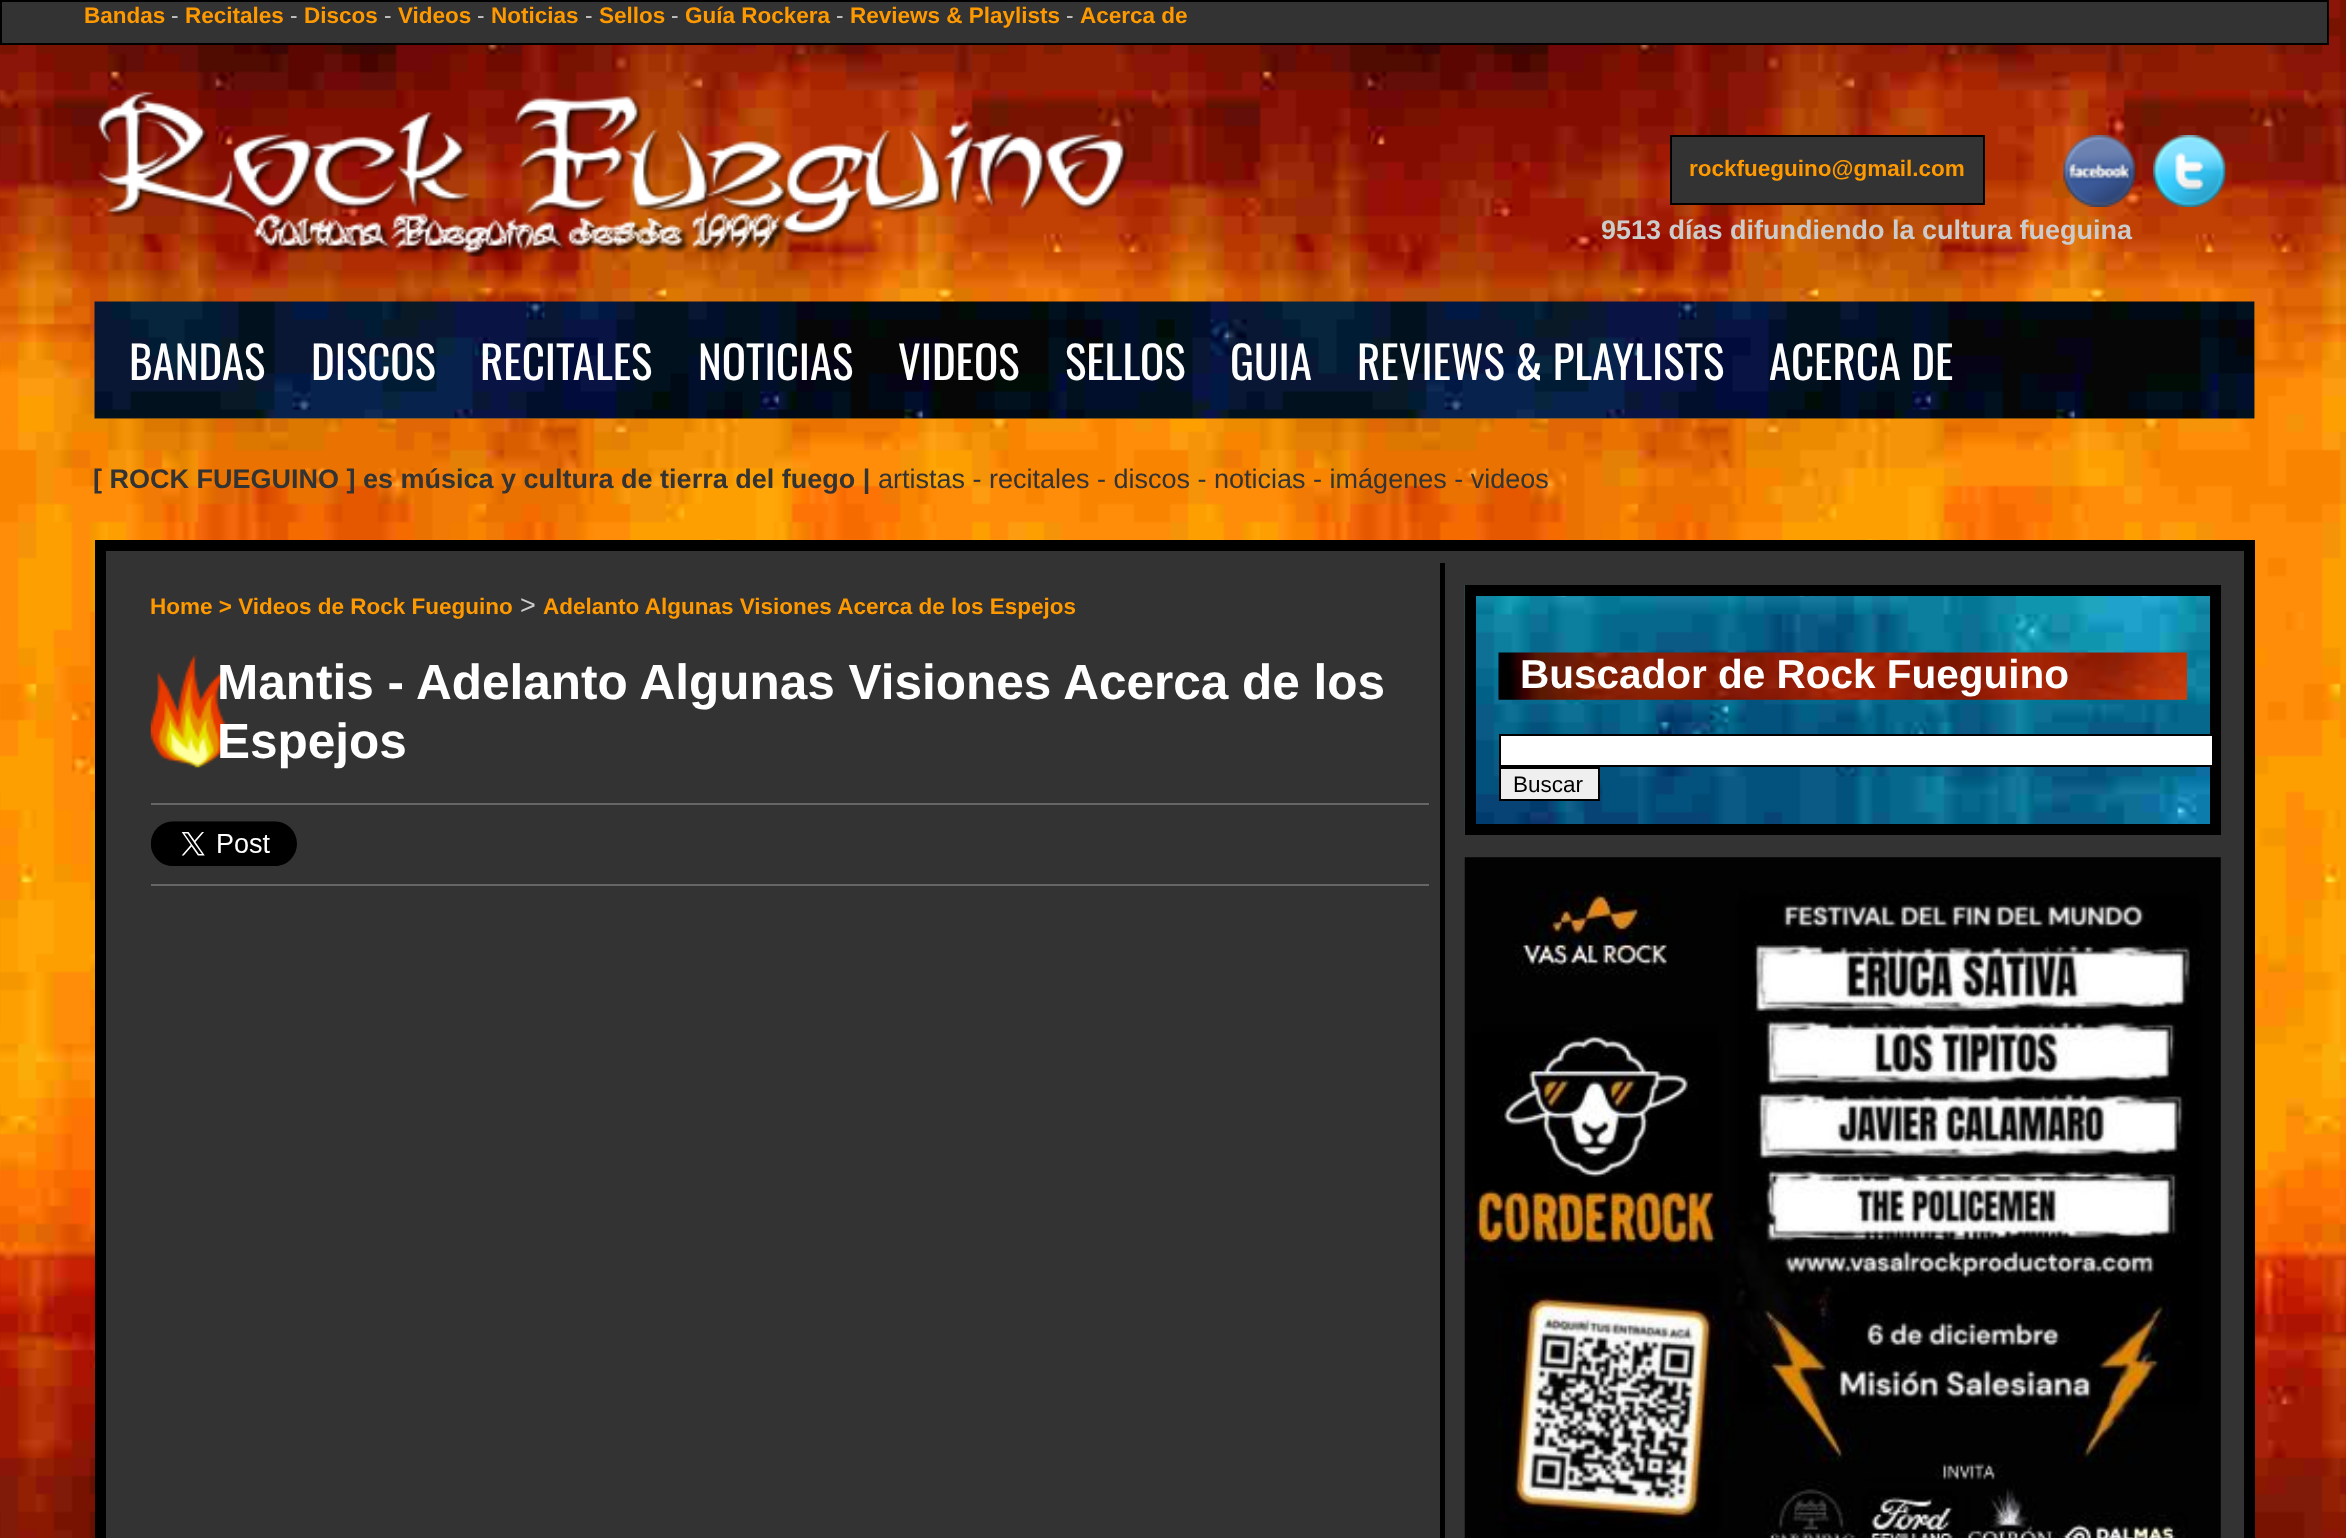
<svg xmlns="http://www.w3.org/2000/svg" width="2346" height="1538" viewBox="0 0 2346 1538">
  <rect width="100%" height="100%" fill="#fff"/>
  <image x="0" y="0" width="2346" height="1538" href="img/1.png"/>
  <path d="M1 1h2327v43H1z" fill="#333" stroke="#000" stroke-width="2"/>
  <image x="98" y="91" width="1030" height="166" href="img/2.png"/>
  <path d="M1671 136h313v68H1671z" fill="#333" stroke="#000" stroke-width="2"/>
  <image x="2063" y="135" width="73" height="72" href="img/3.png"/>
  <image x="2153" y="135" width="73" height="72" href="img/4.png"/>
  <path d="M95 302h2160v117H95z" fill="#f90"/>
  <image x="94" y="301" width="2161" height="118" href="img/5.png"/>
  <path d="M100.5 545.5h2149v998H100.5z" fill="#333" stroke="#000" stroke-width="11"/>
  <path d="M1440 563h5v975H1440z" fill="#000"/>
  <image x="150" y="654" width="82" height="114" href="img/6.png"/>
  <path d="M151 803h1278v2H151z" fill="#666"/>
  <path d="M151 884h1278v2H151z" fill="#666"/>
  <image x="151" y="821" width="146" height="45" href="img/7.png"/>
  <image x="1464" y="585" width="746" height="250" href="img/8.png"/>
  <path d="M1470.5 590.5h745v239H1470.5z" fill="none" stroke="#000" stroke-width="11"/>
  <image x="1498" y="652" width="689" height="48" href="img/9.png"/>
  <path d="M1500 735h713v31H1500z" fill="#fff" stroke="#000" stroke-width="2"/>
  <path d="M1500 768h99v32H1500z" fill="#efefef" stroke="#000" stroke-width="2"/>
  <image x="1464" y="857" width="757" height="681" href="img/10.png"/>
  <text x="84" y="23" font-family="Liberation Sans" font-size="22.5" font-weight="bold" fill="#f90">Bandas</text>
  <text x="171" y="23" font-family="Liberation Sans" font-size="22.5" fill="#ccc">-</text>
  <text x="185" y="23" font-family="Liberation Sans" font-size="22.5" font-weight="bold" fill="#f90">Recitales</text>
  <text x="290" y="23" font-family="Liberation Sans" font-size="22.5" fill="#ccc">-</text>
  <text x="304" y="23" font-family="Liberation Sans" font-size="22.5" font-weight="bold" fill="#f90">Discos</text>
  <text x="384" y="23" font-family="Liberation Sans" font-size="22.5" fill="#ccc">-</text>
  <text x="398" y="23" font-family="Liberation Sans" font-size="22.5" font-weight="bold" fill="#f90">Videos</text>
  <text x="477" y="23" font-family="Liberation Sans" font-size="22.5" fill="#ccc">-</text>
  <text x="491" y="23" font-family="Liberation Sans" font-size="22.5" font-weight="bold" fill="#f90">Noticias</text>
  <text x="585" y="23" font-family="Liberation Sans" font-size="22.5" fill="#ccc">-</text>
  <text x="599" y="23" font-family="Liberation Sans" font-size="22.5" font-weight="bold" fill="#f90">Sellos</text>
  <text x="671" y="23" font-family="Liberation Sans" font-size="22.5" fill="#ccc">-</text>
  <text x="685" y="23" font-family="Liberation Sans" font-size="22.5" font-weight="bold" fill="#f90">Guía Rockera</text>
  <text x="836" y="23" font-family="Liberation Sans" font-size="22.5" fill="#ccc">-</text>
  <text x="850" y="23" font-family="Liberation Sans" font-size="22.5" font-weight="bold" fill="#f90">Reviews &amp; Playlists</text>
  <text x="1066" y="23" font-family="Liberation Sans" font-size="22.5" fill="#ccc">-</text>
  <g font-family="Liberation Sans" font-size="22.5" font-weight="bold" fill="#f90">
    <text x="1080" y="23">Acerca de</text>
    <text x="1689" y="176">rockfueguino@gmail.com</text>
  </g>
  <text x="1601" y="239" font-family="Liberation Sans" font-size="27" font-weight="bold" fill="#ccc">9513 días difundiendo la cultura fueguina</text>
  <g font-family="Oswald" font-size="45" fill="#fff">
    <text x="129" y="380">BANDAS</text>
    <text x="311" y="380">DISCOS</text>
    <text x="480" y="380">RECITALES</text>
    <text x="698" y="380">NOTICIAS</text>
    <text x="898" y="380">VIDEOS</text>
    <text x="1065" y="380">SELLOS</text>
    <text x="1230" y="380">GUIA</text>
    <text x="1357" y="380">REVIEWS &amp; PLAYLISTS</text>
    <text x="1769" y="380">ACERCA DE</text>
  </g>
  <text x="93" y="488" font-family="Liberation Sans" font-size="27" font-weight="bold" fill="#333">[ ROCK FUEGUINO ] es música y cultura de tierra del fuego |</text>
  <text x="878" y="488" font-family="Liberation Sans" font-size="27" fill="#333">artistas - recitales - discos - noticias - imágenes - videos</text>
  <text x="150" y="614" font-family="Liberation Sans" font-size="22.5" font-weight="bold" fill="#f90">Home &gt; Videos de Rock Fueguino</text>
  <text x="520" y="614" font-family="Liberation Sans" font-size="27" fill="#ccc">&gt;</text>
  <text x="543" y="614" font-family="Liberation Sans" font-size="22.5" font-weight="bold" fill="#f90">Adelanto Algunas Visiones Acerca de los Espejos</text>
  <g font-family="Liberation Sans" font-size="49.5" font-weight="bold" fill="#fff">
    <text x="217" y="699">Mantis - Adelanto Algunas Visiones Acerca de los</text>
    <text x="217" y="758">Espejos</text>
  </g>
  <text x="1520" y="688" font-family="Liberation Sans" font-size="40.5" font-weight="bold" fill="#fff">Buscador de Rock Fueguino</text>
  <text x="1513" y="792" font-family="Liberation Sans" font-size="22.5" fill="#000">Buscar</text>
</svg>
